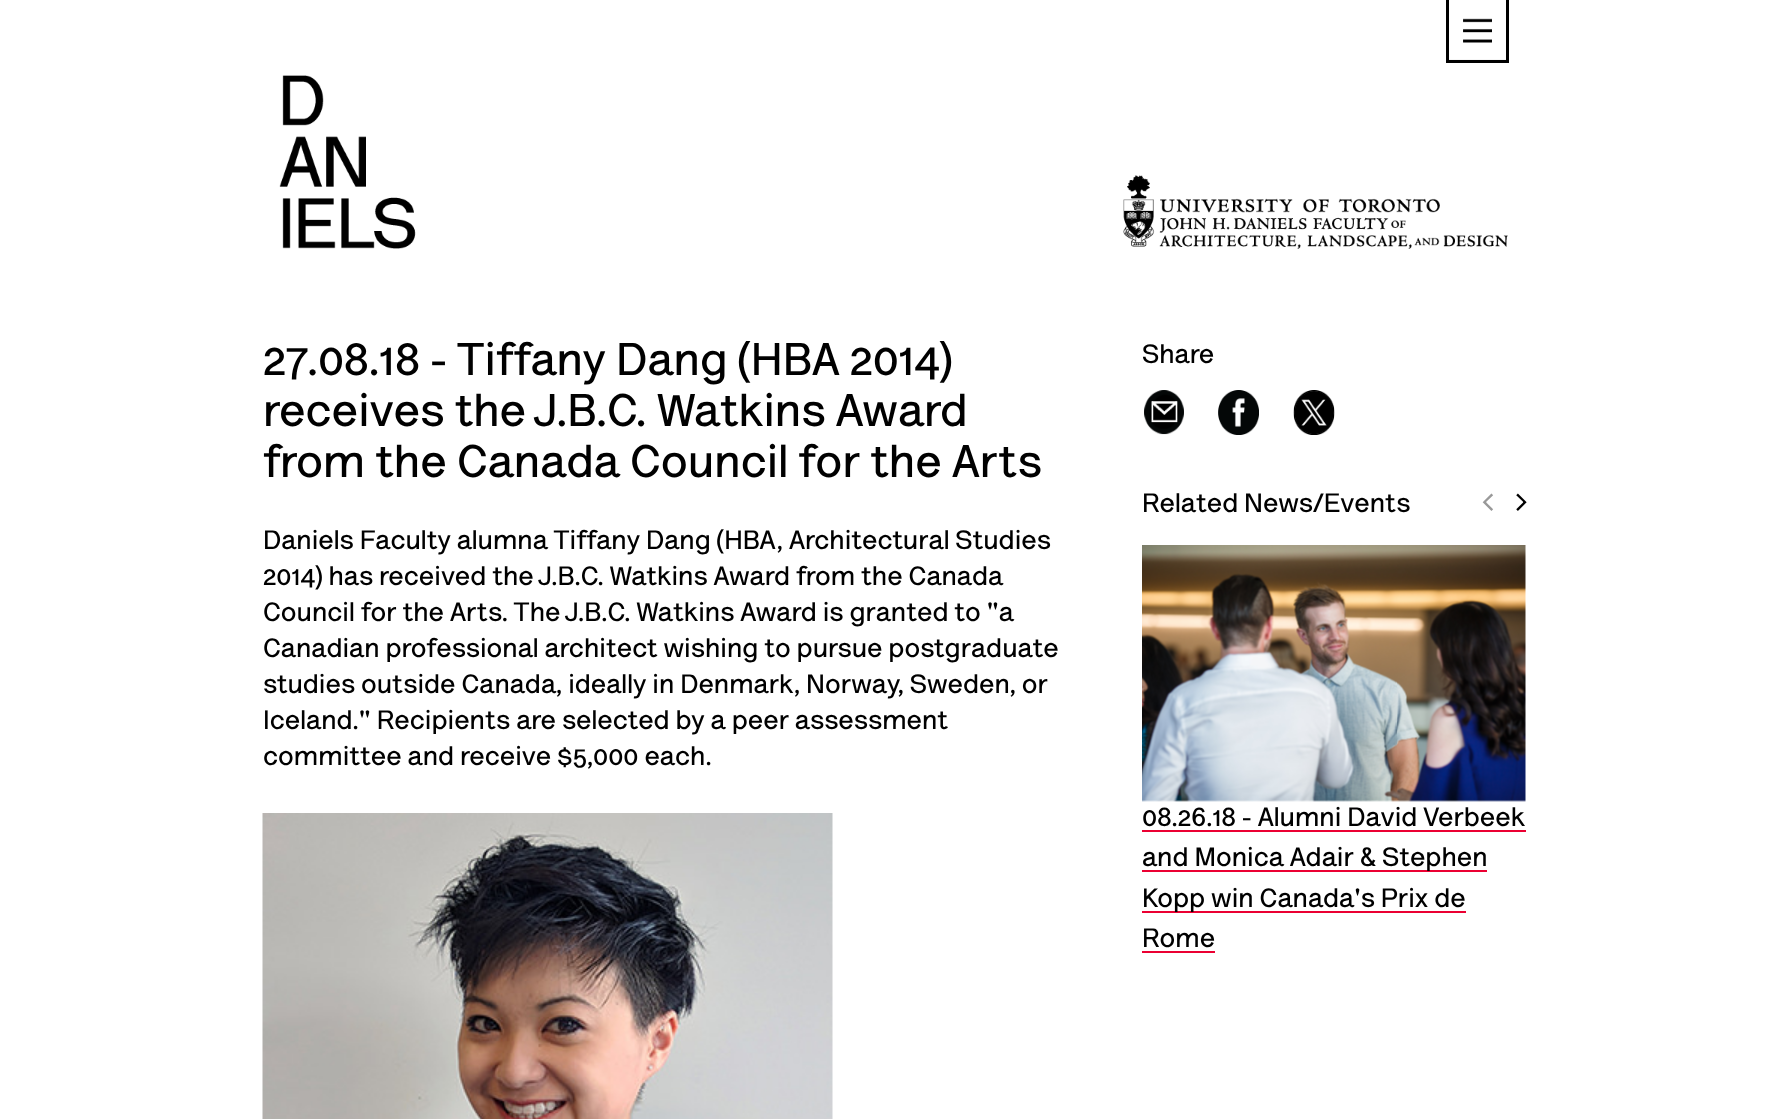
<svg xmlns="http://www.w3.org/2000/svg" width="1788" height="1119" viewBox="0 0 1788 1119">
  <rect width="100%" height="100%" fill="#fff"/>
  <image x="1446" y="0" width="63" height="63" href="img/1.png"/>
  <image x="279" y="75" width="137" height="174" href="img/2.png"/>
  <image x="1123" y="175" width="385" height="74" href="img/3.png"/>
  <image x="262" y="813" width="571" height="306" href="img/4.png"/>
  <image x="1144" y="390" width="40" height="45" href="img/5.png"/>
  <image x="1218" y="390" width="41" height="45" href="img/6.png"/>
  <image x="1293" y="390" width="42" height="45" href="img/7.png"/>
  <path d="M1142 830h384v2H1142z" fill="#eb0032"/>
  <path d="M1142 870h345v2H1142z" fill="#eb0032"/>
  <path d="M1142 911h324v2H1142z" fill="#eb0032"/>
  <path d="M1142 951h73v2H1142z" fill="#eb0032"/>
  <image x="1142" y="545" width="384" height="257" href="img/8.png"/>
  <g font-family="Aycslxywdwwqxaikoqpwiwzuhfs" font-size="46.5" font-weight="bold" fill="#000">
    <text x="263" y="375">27.08.18 - Tiffany Dang (HBA 2014)</text>
    <text x="263" y="426">receives the J.B.C. Watkins Award</text>
    <text x="263" y="477">from the Canada Council for the Arts</text>
  </g>
  <g font-family="Aycslxywdwwqxaikoqpwiwzuhfs" font-size="27" font-weight="bold" fill="#000">
    <text x="263" y="549">Daniels Faculty alumna Tiffany Dang (HBA, Architectural Studies</text>
    <text x="263" y="585">2014) has received the J.B.C. Watkins Award from the Canada</text>
    <text x="263" y="621">Council for the Arts. The J.B.C. Watkins Award is granted to "a</text>
    <text x="263" y="657">Canadian professional architect wishing to pursue postgraduate</text>
    <text x="263" y="693">studies outside Canada, ideally in Denmark, Norway, Sweden, or</text>
    <text x="263" y="729">Iceland." Recipients are selected by a peer assessment</text>
    <text x="263" y="765">committee and receive $5,000 each.</text>
    <text x="1142" y="363">Share</text>
  </g>
  <text x="1481" y="510" font-family="Aycslxywdwwqxaikoqpwiwzuhfs" font-size="27" font-weight="bold" fill="#999">&lt;</text>
  <g font-family="Aycslxywdwwqxaikoqpwiwzuhfs" font-size="27" font-weight="bold" fill="#000">
    <text x="1514" y="510">&gt;</text>
    <text x="1142" y="826">08.26.18 - Alumni David Verbeek</text>
    <text x="1142" y="866">and Monica Adair &amp; Stephen</text>
    <text x="1142" y="907">Kopp win Canada's Prix de</text>
    <text x="1142" y="947">Rome</text>
    <text x="1142" y="512">Related News/Events</text>
  </g>
</svg>
